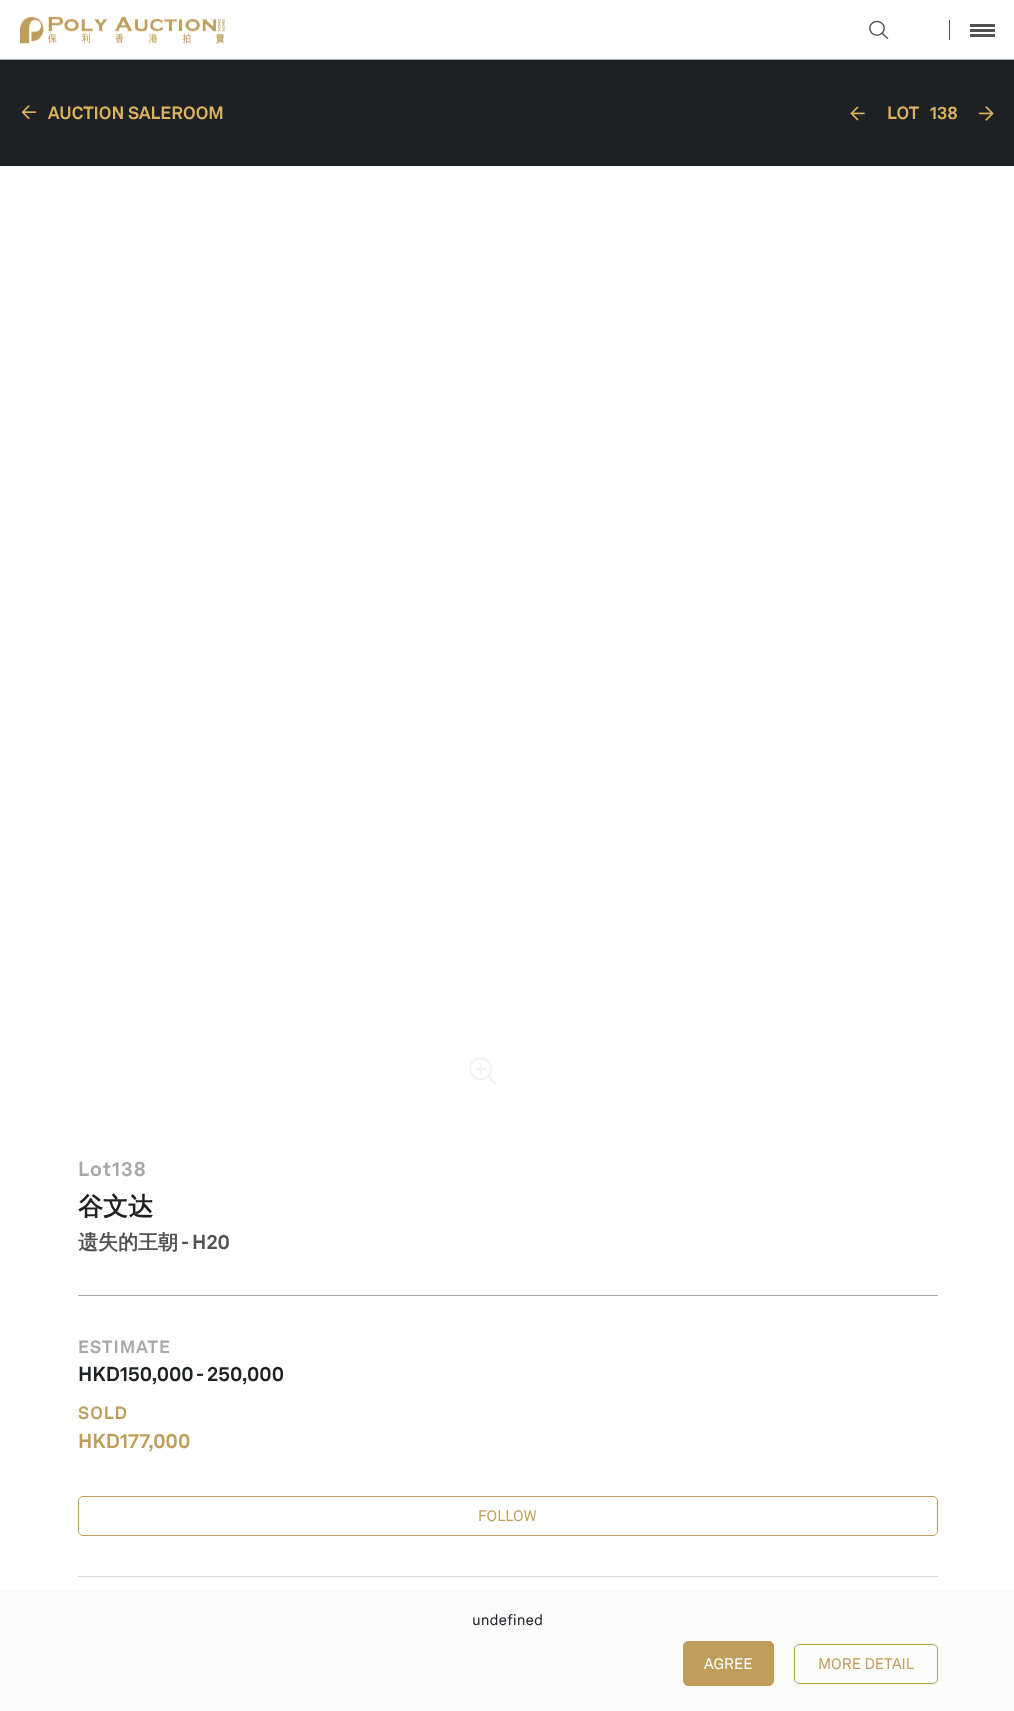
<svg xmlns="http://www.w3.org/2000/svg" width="1014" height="1711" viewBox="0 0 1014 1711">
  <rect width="100%" height="100%" fill="#fff"/>
  <path d="M0 59h1014v1H0z" fill="#a8a8a8"/>
  <image x="20" y="16" width="205" height="28" href="img/1.png"/>
  <image x="869" y="20" width="20" height="20" href="img/2.png"/>
  <path d="M949 20h1v20H949z" fill="#525252"/>
  <path d="M970 24h25v3H970z" fill="#525252"/>
  <path d="M970 29h25v3H970z" fill="#525252"/>
  <path d="M970 34h25v3H970z" fill="#525252"/>
  <path d="M0 60h1014v106H0z" fill="#1e2123"/>
  <image x="21" y="105" width="15" height="15" href="img/3.png"/>
  <image x="850" y="106" width="15" height="15" href="img/4.png"/>
  <image x="978" y="106" width="16" height="15" href="img/5.png"/>
  <image x="469" y="1057" width="28" height="28" href="img/6.png"/>
  <path d="M78 1295h860v1H78z" fill="#a8a8a8"/>
  <rect x="78.5" y="1496.5" width="859" height="39" rx="4.5" fill="none" stroke="#bf9d5a"/>
  <path d="M78 1576h860v1H78z" fill="#dcd7cf"/>
  <path d="M0 1590h1014v121H0z" fill="#fbfbfb"/>
  <rect x="683.5" y="1641.5" width="90" height="44" rx="4.5" fill="#bf9d5a" stroke="#bf9d5a"/>
  <rect x="794.5" y="1644.5" width="143" height="39" rx="4.5" fill="none" stroke="#bf9d5a"/>
  <g font-family="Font" font-size="17.5" font-weight="bold" fill="#dbb35f">
    <text x="48" y="119">AUCTION SALEROOM</text>
    <text x="887" y="119">LOT</text>
    <text x="930" y="119">138</text>
  </g>
  <text x="78" y="1176" font-family="Font" font-size="20" font-weight="bold" letter-spacing="1" fill="#a8a8a8">Lot138</text>
  <text x="78" y="1215" font-family="WenQuanYi Zen Hei" font-size="25" font-weight="bold" fill="#1e2123">谷文达</text>
  <text x="78" y="1249" font-family="WenQuanYi Zen Hei" font-size="20" font-weight="bold" fill="#525252">遗失的王朝</text>
  <text x="181" y="1249" font-family="Font" font-size="20" font-weight="bold" fill="#525252">- H20</text>
  <text x="78" y="1353" font-family="Font" font-size="17.5" font-weight="bold" letter-spacing="1" fill="#a8a8a8">ESTIMATE</text>
  <g font-family="Font" font-size="20" font-weight="bold" fill="#1e2123">
    <text x="78" y="1381">HKD150,000</text>
    <text x="196" y="1381">- 250,000</text>
  </g>
  <text x="78" y="1419" font-family="Font" font-size="17.5" font-weight="bold" letter-spacing="1" fill="#bf9d5a">SOLD</text>
  <text x="78" y="1448" font-family="Font" font-size="20" font-weight="bold" fill="#bf9d5a">HKD177,000</text>
  <text x="478" y="1521" font-family="Font" font-size="15" fill="#bf9d5a">FOLLOW</text>
  <text x="472" y="1625" font-family="Font" font-size="15" fill="#212529">undefined</text>
  <text x="704" y="1669" font-family="Font" font-size="15" fill="#fff">AGREE</text>
  <text x="818" y="1669" font-family="Font" font-size="15" fill="#bf9d5a">MORE DETAIL</text>
</svg>
